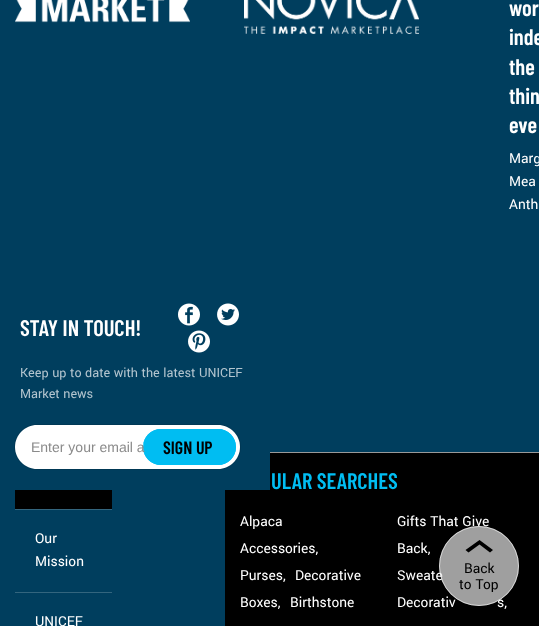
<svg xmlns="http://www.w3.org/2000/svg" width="539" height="626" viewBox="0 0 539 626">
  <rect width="100%" height="100%" fill="#003e5e"/>
  <image x="15" y="0" width="175" height="23" href="img/1.png"/>
  <image x="244" y="0" width="175" height="34" href="img/2.png"/>
  <path d="M225 453h314v173H225z" fill="#000"/>
  <path d="M225 453h45v37H225z" fill="#003e5e"/>
  <image x="178" y="303" width="22" height="23" href="img/3.png"/>
  <image x="217" y="303" width="22" height="23" href="img/4.png"/>
  <image x="188" y="330" width="22" height="23" href="img/5.png"/>
  <rect x="14.5" y="424.5" width="226" height="45" rx="22.5" fill="none" stroke="#003855"/>
  <path d="M37 425H143V469H37C25 469 15 459 15 447C15 435 25 425 37 425Z" fill="#fff"/>
  <path d="M143 425H218C230 425 240 435 240 447C240 459 230 469 218 469H143Z" fill="#fff"/>
  <rect x="143" y="429" width="93" height="36" rx="18" fill="#00bdf2"/>
  <path d="M161 429H218C228 429 236 437 236 447C236 457 228 465 218 465H161C151 465 143 457 143 447C143 437 151 429 161 429ZM161 432H218C226 432 233 439 233 447C233 455 226 462 218 462H161C151 462 143 455 143 447C143 439 151 432 161 432Z" fill="#00bdf2" fill-rule="evenodd"/>
  <path d="M15 490h97v19H15z" fill="#000"/>
  <path d="M15 509h97v1H15z" fill="#33657e"/>
  <path d="M15 592h97v1H15z" fill="#33657e"/>
  <path d="M270 452h269v1H270z" fill="#999"/>
  <g font-family="Barlow Condensed" font-size="22.5" font-weight="600" fill="#fff">
    <text x="509" y="16">wor</text>
    <text x="509" y="45">inde</text>
    <text x="509" y="75">the</text>
    <text x="509" y="104">thin</text>
    <text x="509" y="133">eve</text>
  </g>
  <g font-family="Yantramanav" font-size="15.25" fill="#fff">
    <text x="509" y="163">Marg</text>
    <text x="509" y="186">Mea</text>
    <text x="509" y="209">Anth</text>
  </g>
  <text x="20" y="336" font-family="Barlow Condensed" font-size="22.5" font-weight="600" fill="#fff">STAY IN TOUCH!</text>
  <g font-family="Yantramanav" font-size="14" fill="#b3c5cf">
    <text x="20" y="377">Keep up to date with the latest UNICEF</text>
    <text x="20" y="398">Market news</text>
  </g>
  <text x="31" y="452" font-family="Liberation Sans" font-size="14" fill="#8a8a8a">Enter your email a</text>
  <text x="163" y="454" font-family="Barlow Condensed" font-size="18" font-weight="600" fill="#000">SIGN UP</text>
  <g font-family="Yantramanav" font-size="15.25" fill="#fff">
    <text x="35" y="543">Our</text>
    <text x="35" y="566">Mission</text>
    <text x="35" y="626">UNICEF</text>
  </g>
  <text x="271" y="489" font-family="Barlow Condensed" font-size="22.5" font-weight="600" fill="#00bdf2">ULAR SEARCHES</text>
  <g font-family="Yantramanav" font-size="15.25" fill="#fff">
    <text x="240" y="526">Alpaca</text>
    <text x="240" y="553">Accessories,</text>
    <text x="240" y="580">Purses,</text>
    <text x="295" y="580">Decorative</text>
    <text x="240" y="607">Boxes,</text>
    <text x="290" y="607">Birthstone</text>
    <text x="397" y="526">Gifts That Give</text>
    <text x="397" y="553">Back,</text>
    <text x="397" y="580">Sweate</text>
    <text x="397" y="607">Decorativ</text>
    <text x="497" y="607">s,</text>
  </g>
  <circle cx="479" cy="566" r="40" fill="#e2e2e2b3"/>
  <circle cx="479" cy="566" r="39.5" fill="none" stroke="#ffffff99"/>
  <path d="M490 552.5L493 550L479.5 540L465.5 550L468.5 552.5L479.5 544.5Z" fill="#000"/>
  <g font-family="Yantramanav" font-size="15.25" fill="#000">
    <text x="464" y="573">Back</text>
    <text x="459" y="589">to Top</text>
  </g>
</svg>
